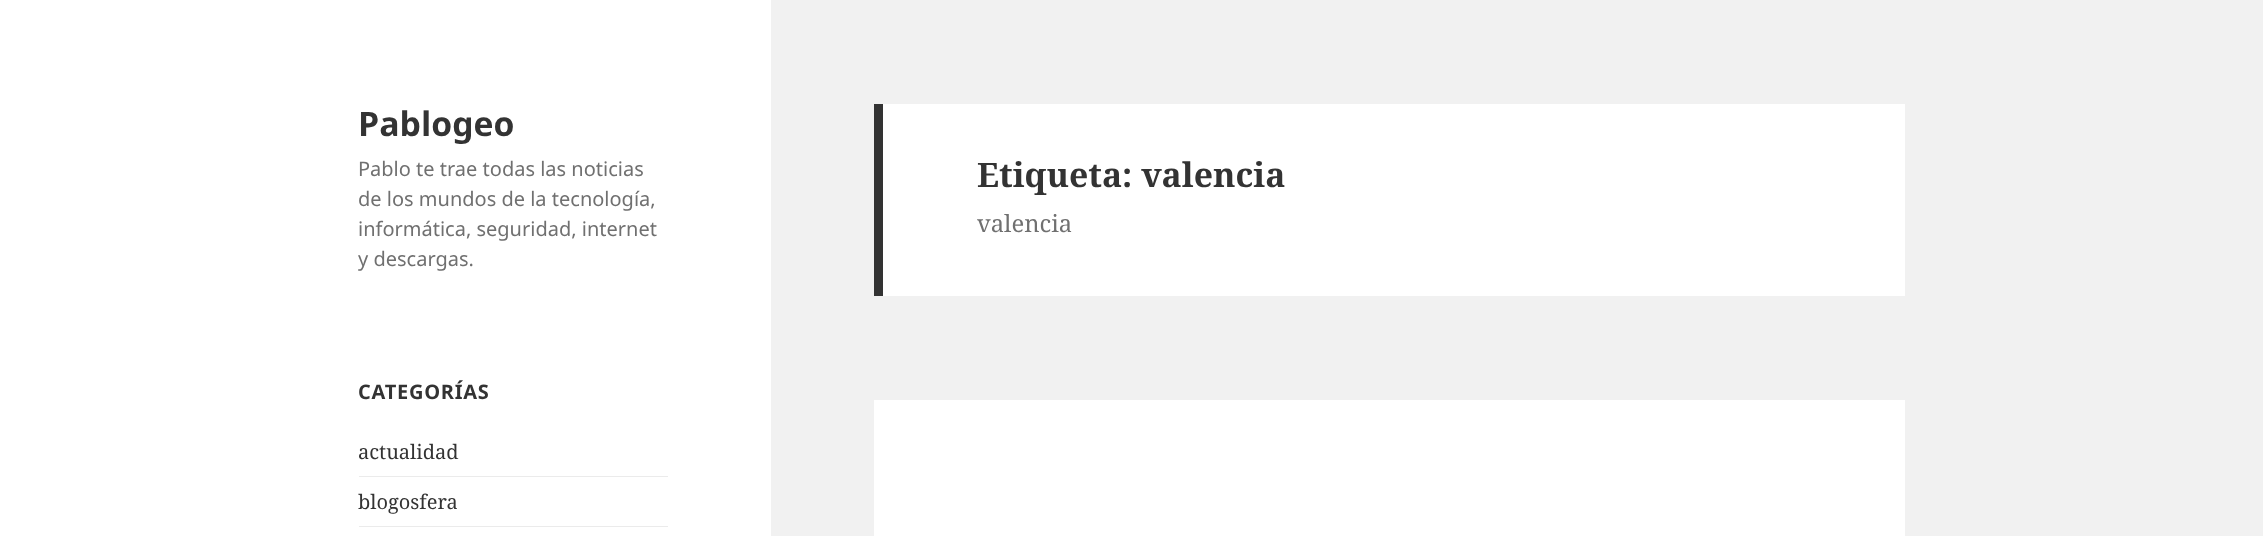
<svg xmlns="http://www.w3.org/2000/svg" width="2263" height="536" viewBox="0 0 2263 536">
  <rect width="100%" height="100%" fill="#f1f1f1"/>
  <path d="M0 0h771v536H0z" fill="#fff"/>
  <path d="M359 476h309v1H359z" fill="#ebebeb"/>
  <path d="M359 526h309v1H359z" fill="#ebebeb"/>
  <path d="M883 104h1022v192H883z" fill="#fff"/>
  <path d="M874 104h9v192H874z" fill="#333"/>
  <path d="M874 400h1031v136H874z" fill="#fff"/>
  <text x="358" y="136" font-family="Noto Sans" font-size="33.75" font-weight="bold" fill="#333">Pablogeo</text>
  <g font-family="Noto Sans" font-size="20" fill="#707070">
    <text x="358" y="176">Pablo te trae todas las noticias</text>
    <text x="358" y="206">de los mundos de la tecnología,</text>
    <text x="358" y="236">informática, seguridad, internet</text>
    <text x="358" y="266">y descargas.</text>
  </g>
  <text x="358" y="399" font-family="Noto Sans" font-size="20" font-weight="bold" letter-spacing="0.75" fill="#333">CATEGORÍAS</text>
  <g font-family="Noto Serif" font-size="20" fill="#333">
    <text x="358" y="459">actualidad</text>
    <text x="358" y="509">blogosfera</text>
  </g>
  <text x="977" y="187" font-family="Noto Serif" font-size="33.75" font-weight="bold" fill="#333">Etiqueta: valencia</text>
  <text x="977" y="232" font-family="Noto Serif" font-size="23.75" fill="#707070">valencia</text>
</svg>
